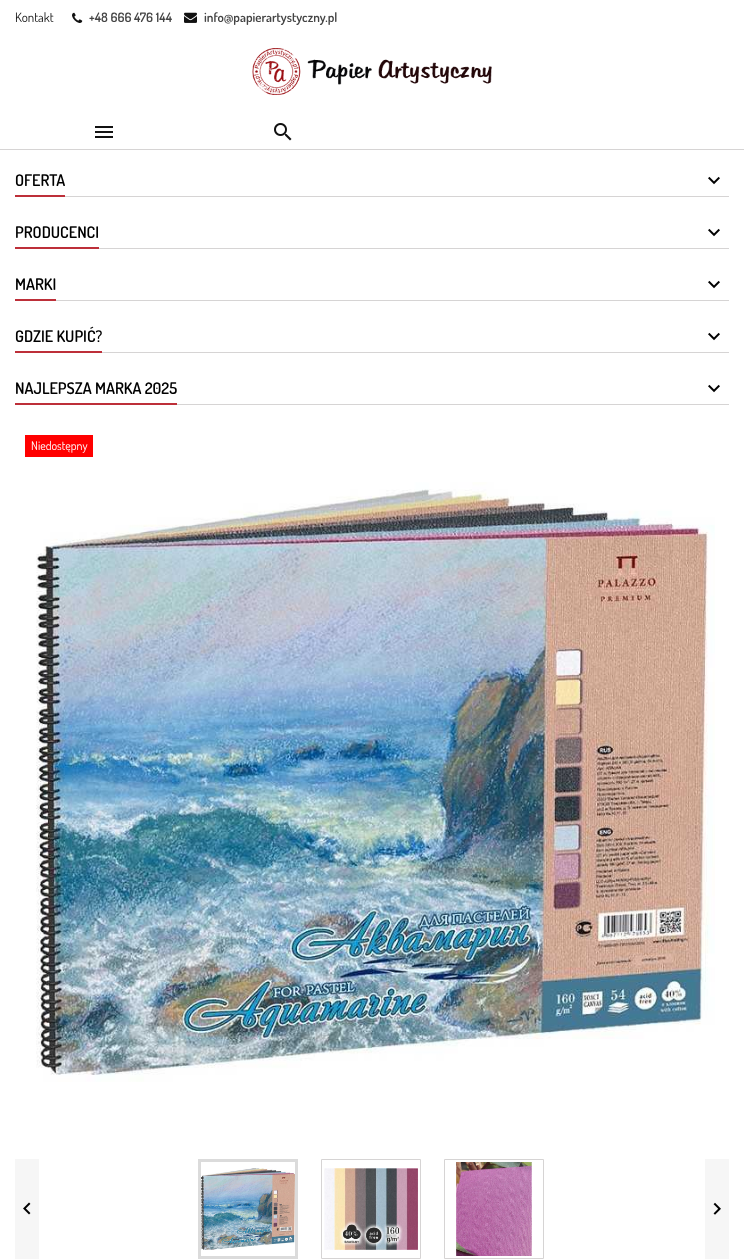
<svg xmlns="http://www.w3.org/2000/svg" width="744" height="1260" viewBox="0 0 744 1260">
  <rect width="100%" height="100%" fill="#fff"/>
  <image x="72" y="12" width="11" height="11" href="img/1.png"/>
  <image x="184" y="12" width="13" height="11" href="img/2.png"/>
  <image x="252" y="48" width="240" height="47" href="img/3.png"/>
  <path d="M0 149h744v1H0z" fill="#d6d4d4"/>
  <image x="95" y="126" width="18" height="12" href="img/4.png"/>
  <image x="274" y="123" width="18" height="18" href="img/5.png"/>
  <path d="M65 196h664v1H65z" fill="#d6d4d4"/>
  <path d="M15 195h50v2H15z" fill="#bd2f39"/>
  <image x="708" y="176" width="12" height="9" href="img/6.png"/>
  <path d="M99 248h630v1H99z" fill="#d6d4d4"/>
  <path d="M15 247h84v2H15z" fill="#bd2f39"/>
  <image x="708" y="228" width="12" height="9" href="img/6.png"/>
  <path d="M56 300h673v1H56z" fill="#d6d4d4"/>
  <path d="M15 299h41v2H15z" fill="#bd2f39"/>
  <image x="708" y="280" width="12" height="9" href="img/6.png"/>
  <path d="M102 352h627v1H102z" fill="#d6d4d4"/>
  <path d="M15 351h87v2H15z" fill="#bd2f39"/>
  <image x="708" y="332" width="12" height="9" href="img/6.png"/>
  <path d="M177 404h552v1H177z" fill="#d6d4d4"/>
  <path d="M15 403h162v2H15z" fill="#bd2f39"/>
  <image x="708" y="384" width="12" height="9" href="img/6.png"/>
  <path d="M25 435h68v22H25z" fill="#f00"/>
  <image x="36" y="482" width="679" height="600" href="img/7.png"/>
  <path d="M199.5 1160.5h97v97H199.5z" fill="none" stroke="#dbdbdb" stroke-width="3"/>
  <path d="M321.5 1159.5h99v99H321.5z" fill="none" stroke="#d6d4d4"/>
  <path d="M444.5 1159.5h99v99H444.5z" fill="none" stroke="#d6d4d4"/>
  <image x="201" y="1168" width="94" height="82" href="img/8.png"/>
  <image x="324" y="1168" width="94" height="82" href="img/9.png"/>
  <image x="456" y="1162" width="76" height="94" href="img/10.png"/>
  <path d="M15 1159h24v100H15z" fill="#f6f6f6"/>
  <image x="23" y="1202" width="8" height="13" href="img/11.png"/>
  <path d="M705 1159h24v100H705z" fill="#f6f6f6"/>
  <image x="713" y="1202" width="8" height="13" href="img/12.png"/>
  <text x="15" y="22" font-family="Dosis" font-size="13" fill="#111">Kontakt</text>
  <g font-family="Dosis" font-size="13" font-weight="600" fill="#444">
    <text x="89" y="22">+48 666 476 144</text>
    <text x="204" y="22">info@papierartystyczny.pl</text>
  </g>
  <g font-family="Dosis" font-size="16" font-weight="600" fill="#000">
    <text x="15" y="186">OFERTA</text>
    <text x="15" y="238">PRODUCENCI</text>
    <text x="15" y="290">MARKI</text>
    <text x="15" y="342">GDZIE KUPIĆ?</text>
    <text x="15" y="394">NAJLEPSZA MARKA 2025</text>
  </g>
  <text x="31" y="450" font-family="Dosis" font-size="12" fill="#fff">Niedostępny</text>
</svg>
